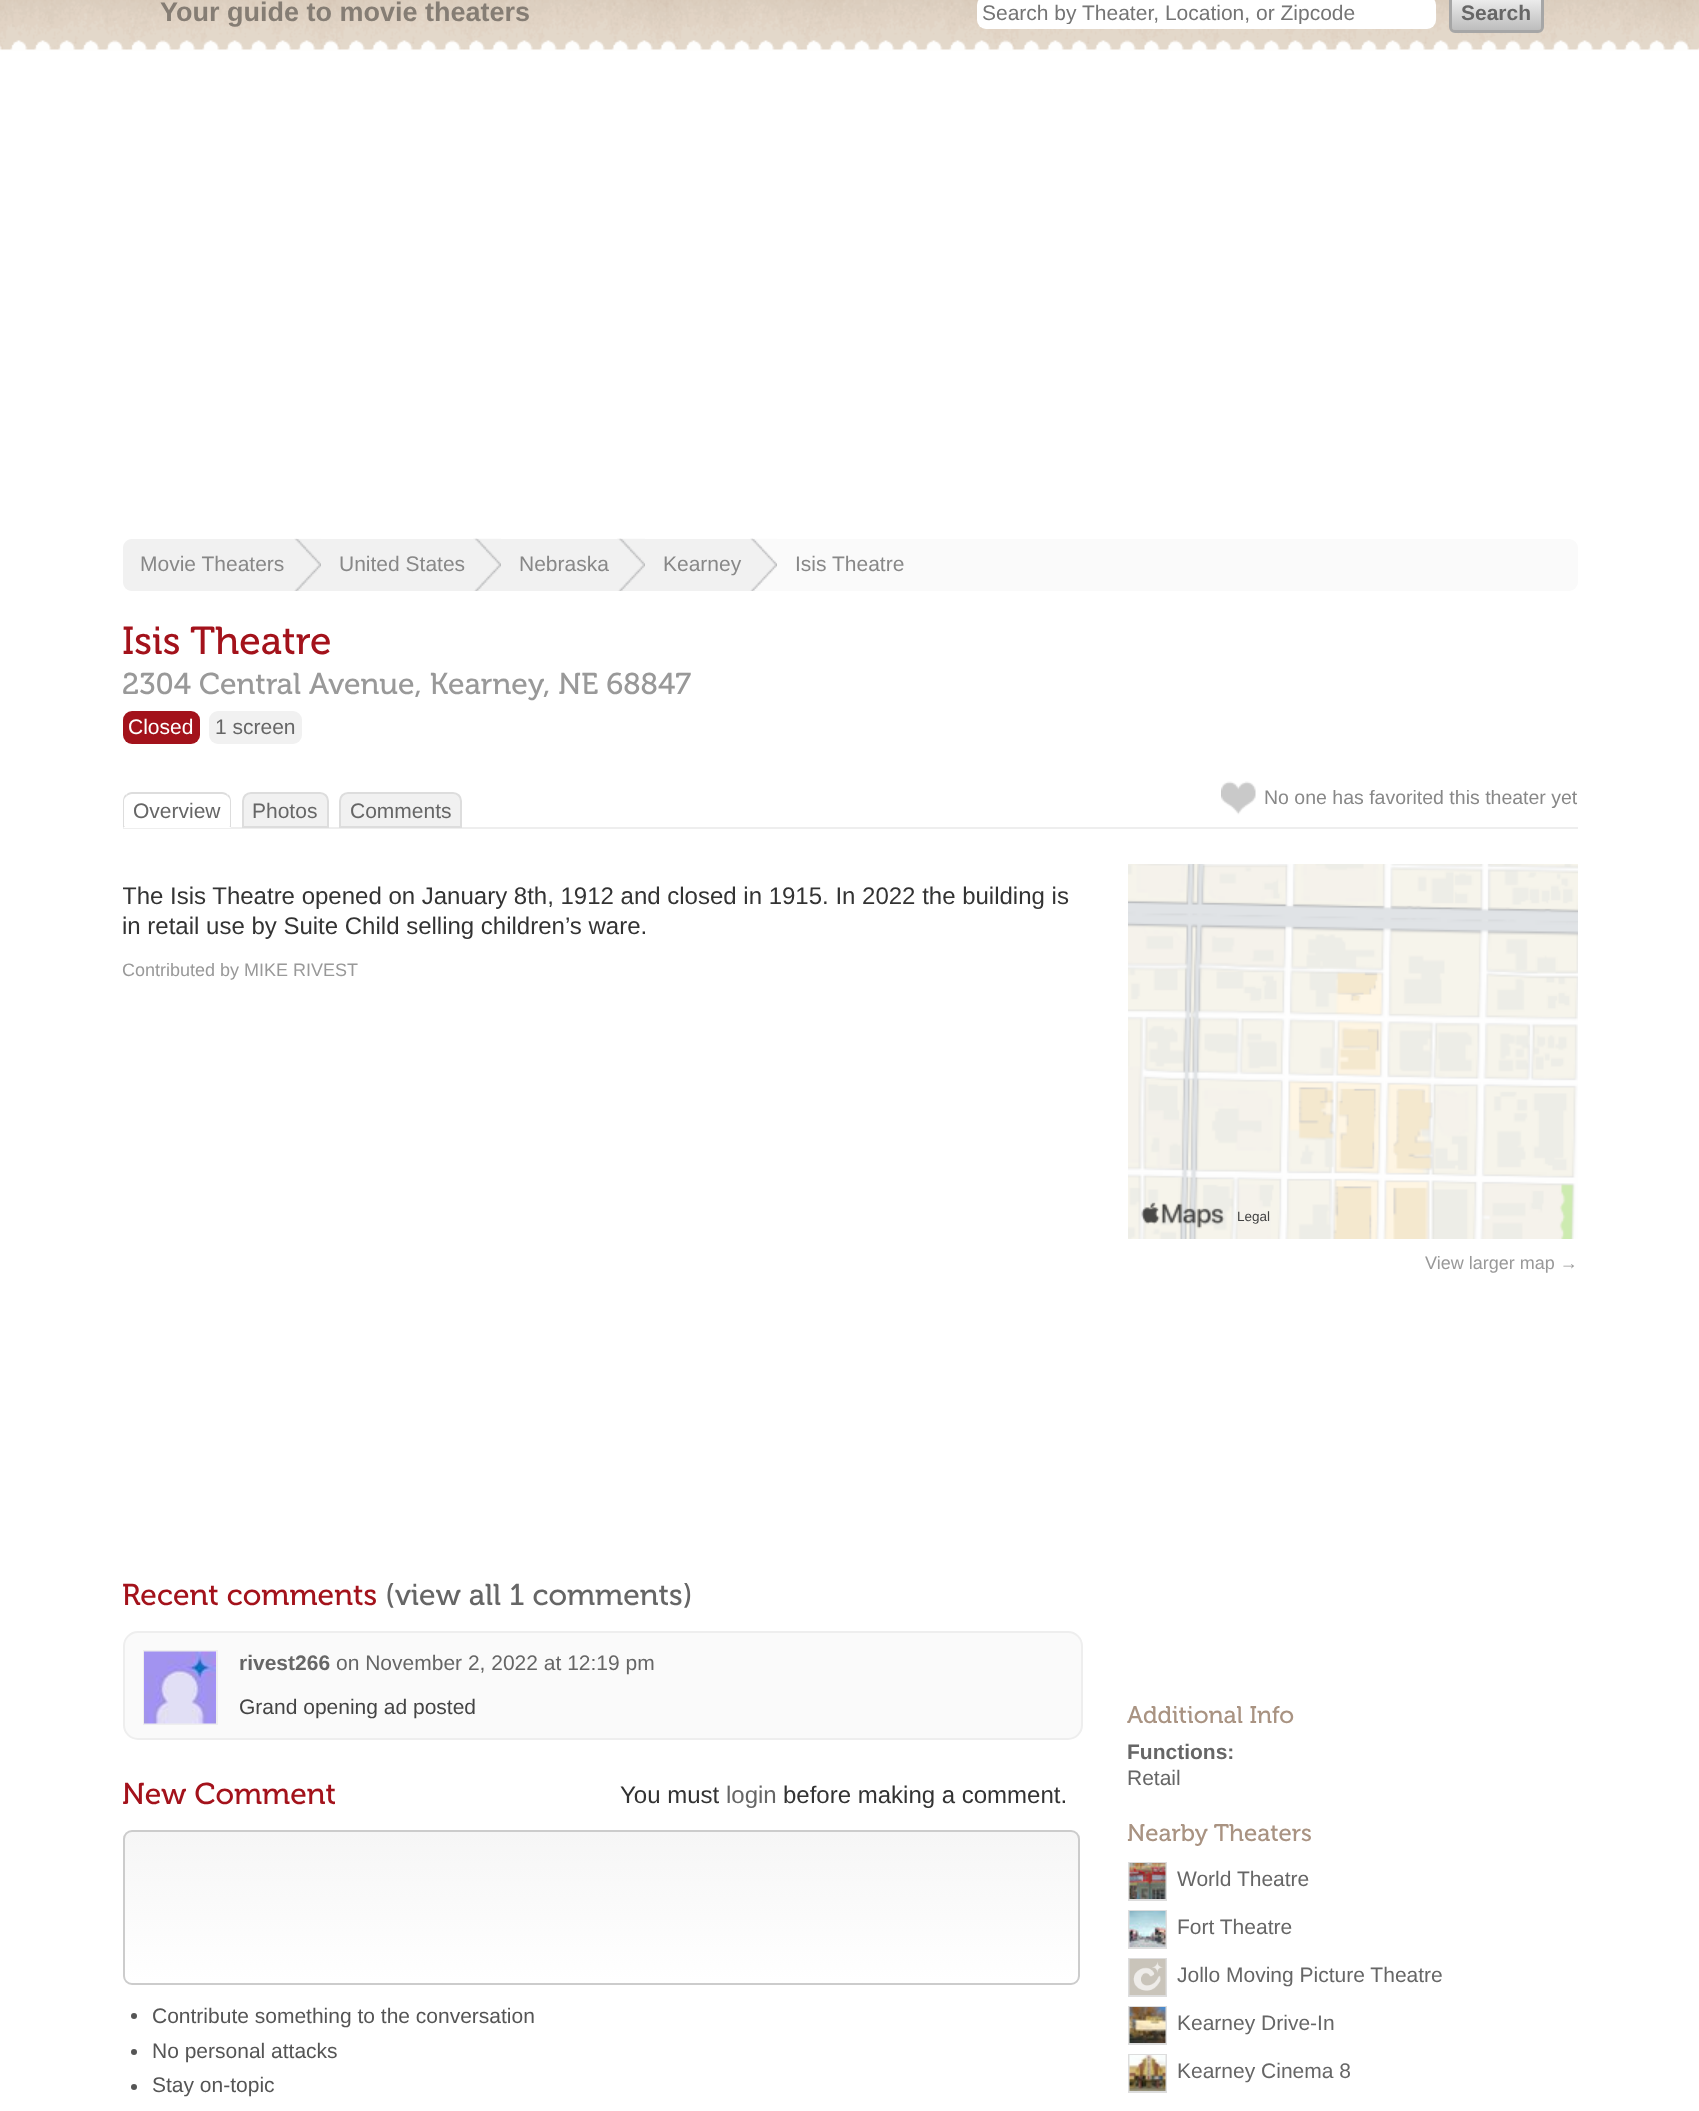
<svg xmlns="http://www.w3.org/2000/svg" width="1699" height="2111" viewBox="0 0 1699 2111">
  <defs>
    <linearGradient id="g1" gradientUnits="userSpaceOnUse" x1="1496" y1="-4.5" x2="1496" y2="30"><stop offset="0" stop-color="#f2f2f2"/><stop offset="1" stop-color="#bdbdbd"/></linearGradient>
    <clipPath id="clip1"><rect x="123" y="1830" width="957" height="155" rx="9"/></clipPath>
    <linearGradient id="g2" gradientUnits="userSpaceOnUse" x1="602" y1="1832" x2="602" y2="1983"><stop offset="0" stop-color="#f6f6f6"/><stop offset="1" stop-color="#fff"/></linearGradient>
    <clipPath id="clip2"><path d="M981 0h450v24H981z"/></clipPath>
    <clipPath id="clip3"><path d="M123 87h1455v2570H123z"/></clipPath>
  </defs>
  <rect width="100%" height="100%" fill="#fff"/>
  <image x="0" y="0" width="1699" height="51" href="img/1.png"/>
  <rect x="977" y="-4" width="459" height="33" rx="9" fill="#fff"/>
  <rect x="1452" y="-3" width="89" height="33" rx="3" fill="url(#g1)"/>
  <rect x="1450.5" y="-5.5" width="92" height="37" rx="4.5" fill="none" stroke="#a6a6a6" stroke-width="3"/>
  <rect x="123" y="539" width="1455" height="52" rx="9" fill="#fafafa"/>
  <path d="M132 539H321V591H132C127 591 123 587 123 582V548C123 543 127 539 132 539Z" fill="#f1f1f1"/>
  <image x="294" y="538" width="27" height="53" href="img/2.png"/>
  <path d="M321 539h456v52H321z" fill="#f1f1f1"/>
  <image x="473" y="538" width="28" height="53" href="img/3.png"/>
  <image x="617" y="538" width="28" height="53" href="img/4.png"/>
  <image x="750" y="538" width="27" height="53" href="img/5.png"/>
  <rect x="123" y="711" width="77" height="33" rx="9" fill="#a3121b"/>
  <rect x="209" y="711" width="93" height="33" rx="9" fill="#f1f1f1"/>
  <path d="M123 827h1455v2H123z" fill="#eee"/>
  <path d="M132 792H222C227 792 231 796 231 801V828H123V801C123 796 127 792 132 792Z" fill="#fff"/>
  <path d="M132 792C130 792 127 793 126 795L127 796C128 795 130 794 132 794H222C224 794 226 795 227 796L228 795C227 793 224 792 222 792Z" fill="#ddd"/>
  <path d="M231 828V801C231 798.5 230 796 228.5 794.5L227 796C229 797 230 799 230 801V826H229Z" fill="#ddd"/>
  <path d="M231 828L229 826H125L123 828Z" fill="#fff"/>
  <path d="M123 828L125 826H124V801C124 799 125 797 127 796L125.5 794.5C124 796 123 798.5 123 801Z" fill="#ddd"/>
  <path d="M251 793H320C324.5 793 328 796.5 328 801V827H243V801C243 796.5 246.5 793 251 793Z" fill="#f1f1f1" stroke="#ddd" stroke-width="2"/>
  <path d="M348 793H453C457.5 793 461 796.5 461 801V827H340V801C340 796.5 343.5 793 348 793Z" fill="#f1f1f1" stroke="#ddd" stroke-width="2"/>
  <image x="1221" y="781" width="35" height="34" href="img/6.png"/>
  <rect x="124" y="1632" width="958" height="107" rx="14" fill="#fafafa" stroke="#eee" stroke-width="2"/>
  <path d="M144 1651h73v73H144z" fill="none" stroke="#eee" stroke-width="2"/>
  <image x="144" y="1651" width="72" height="73" href="img/7.png"/>
  <image x="1128" y="864" width="450" height="375" href="img/8.png"/>
  <image x="1141" y="1202" width="84" height="27" href="img/9.png"/>
  <path d="M1129 1863h37v37H1129z" fill="none" stroke="#ddd" stroke-width="2"/>
  <image x="1129" y="1863" width="37" height="36" href="img/10.png"/>
  <path d="M1129 1911h37v37H1129z" fill="none" stroke="#ddd" stroke-width="2"/>
  <image x="1129" y="1911" width="37" height="36" href="img/11.png"/>
  <path d="M1129 1959h37v37H1129z" fill="none" stroke="#ddd" stroke-width="2"/>
  <image x="1129" y="1959" width="37" height="36" href="img/12.png"/>
  <path d="M1129 2007h37v37H1129z" fill="none" stroke="#ddd" stroke-width="2"/>
  <image x="1129" y="2007" width="37" height="36" href="img/13.png"/>
  <path d="M1129 2055h37v37H1129z" fill="none" stroke="#ddd" stroke-width="2"/>
  <image x="1129" y="2055" width="37" height="36" href="img/14.png"/>
  <g clip-path="url(#clip1)">
    <path d="M123 1832h957v151H123z" fill="url(#g2)"/>
  </g>
  <rect x="124" y="1831" width="955" height="153" rx="8" fill="none" stroke="#ccc" stroke-width="2"/>
  <circle cx="134" cy="2016" r="3" fill="#555"/>
  <circle cx="134" cy="2052" r="3" fill="#555"/>
  <circle cx="134" cy="2087" r="3" fill="#555"/>
  <text x="160" y="21" font-family="Liberation Sans" font-size="27" font-weight="bold" fill="#857d74">Your guide to movie theaters</text>
  <g clip-path="url(#clip2)">
    <text x="982" y="20" font-family="Liberation Sans" font-size="21" fill="#757575">Search by Theater, Location, or Zipcode</text>
  </g>
  <text x="1461" y="20" font-family="Liberation Sans" font-size="21" font-weight="bold" fill="#666">Search</text>
  <g font-family="Liberation Sans" font-size="21" fill="#888">
    <text x="140" y="571">Movie Theaters</text>
    <text x="339" y="571">United States</text>
    <text x="519" y="571">Nebraska</text>
    <text x="663" y="571">Kearney</text>
    <text x="795" y="571">Isis Theatre</text>
  </g>
  <text x="122" y="654" font-family="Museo" font-size="39" fill="#a3121b">Isis Theatre</text>
  <text x="122" y="694" font-family="Museo" font-size="30" fill="#999">2304 Central Avenue, Kearney, NE 68847</text>
  <text x="128" y="734" font-family="Liberation Sans" font-size="21" fill="#fff">Closed</text>
  <g font-family="Liberation Sans" font-size="21" fill="#666">
    <text x="215" y="734">1 screen</text>
    <text x="133" y="818">Overview</text>
    <text x="252" y="818">Photos</text>
    <text x="350" y="818">Comments</text>
  </g>
  <text x="1264" y="804" font-family="Liberation Sans" font-size="19.5" fill="#888">No one has favorited this theater yet</text>
  <g clip-path="url(#clip3)">
    <text x="122" y="904" font-family="Liberation Sans" font-size="24" fill="#333">The Isis Theatre opened on January 8th, 1912 and closed in 1915. In 2022 the building is</text>
  </g>
  <text x="122" y="934" font-family="Liberation Sans" font-size="24" fill="#333">in retail use by Suite Child selling children’s ware.</text>
  <text x="122" y="976" font-family="Liberation Sans" font-size="18" fill="#999">Contributed by MIKE RIVEST</text>
  <text x="122" y="1605" font-family="Museo" font-size="30" fill="#a3121b">Recent comments</text>
  <text x="385" y="1605" font-family="Museo" font-size="30" fill="#666">(view all 1 comments)</text>
  <text x="239" y="1670" font-family="Liberation Sans" font-size="21" font-weight="bold" fill="#666">rivest266</text>
  <text x="336" y="1670" font-family="Liberation Sans" font-size="21" fill="#666">on November 2, 2022 at 12:19 pm</text>
  <text x="239" y="1714" font-family="Liberation Sans" font-size="21" fill="#444">Grand opening ad posted</text>
  <text x="1237" y="1221" font-family="Liberation Sans" font-size="13.5" fill="#444">Legal</text>
  <text x="1425" y="1269" font-family="Liberation Sans" font-size="18" fill="#999">View larger map →</text>
  <text x="1127" y="1723" font-family="Museo" font-size="24" fill="#a99382">Additional Info</text>
  <text x="1127" y="1759" font-family="Liberation Sans" font-size="21" font-weight="bold" fill="#666">Functions:</text>
  <text x="1127" y="1785" font-family="Liberation Sans" font-size="21" fill="#666">Retail</text>
  <text x="1127" y="1841" font-family="Museo" font-size="24" fill="#a99382">Nearby Theaters</text>
  <g font-family="Liberation Sans" font-size="21" fill="#666">
    <text x="1177" y="1886">World Theatre</text>
    <text x="1177" y="1934">Fort Theatre</text>
    <text x="1177" y="1982">Jollo Moving Picture Theatre</text>
    <text x="1177" y="2030">Kearney Drive-In</text>
    <text x="1177" y="2078">Kearney Cinema 8</text>
  </g>
  <text x="122" y="1804" font-family="Museo" font-size="30" fill="#a3121b">New Comment</text>
  <text x="620" y="1803" font-family="Liberation Sans" font-size="24" fill="#333">You must</text>
  <text x="726" y="1803" font-family="Liberation Sans" font-size="24" fill="#666">login</text>
  <text x="783" y="1803" font-family="Liberation Sans" font-size="24" fill="#333">before making a comment.</text>
  <g font-family="Liberation Sans" font-size="21" fill="#555">
    <text x="152" y="2023">Contribute something to the conversation</text>
    <text x="152" y="2058">No personal attacks</text>
    <text x="152" y="2092">Stay on-topic</text>
  </g>
</svg>
